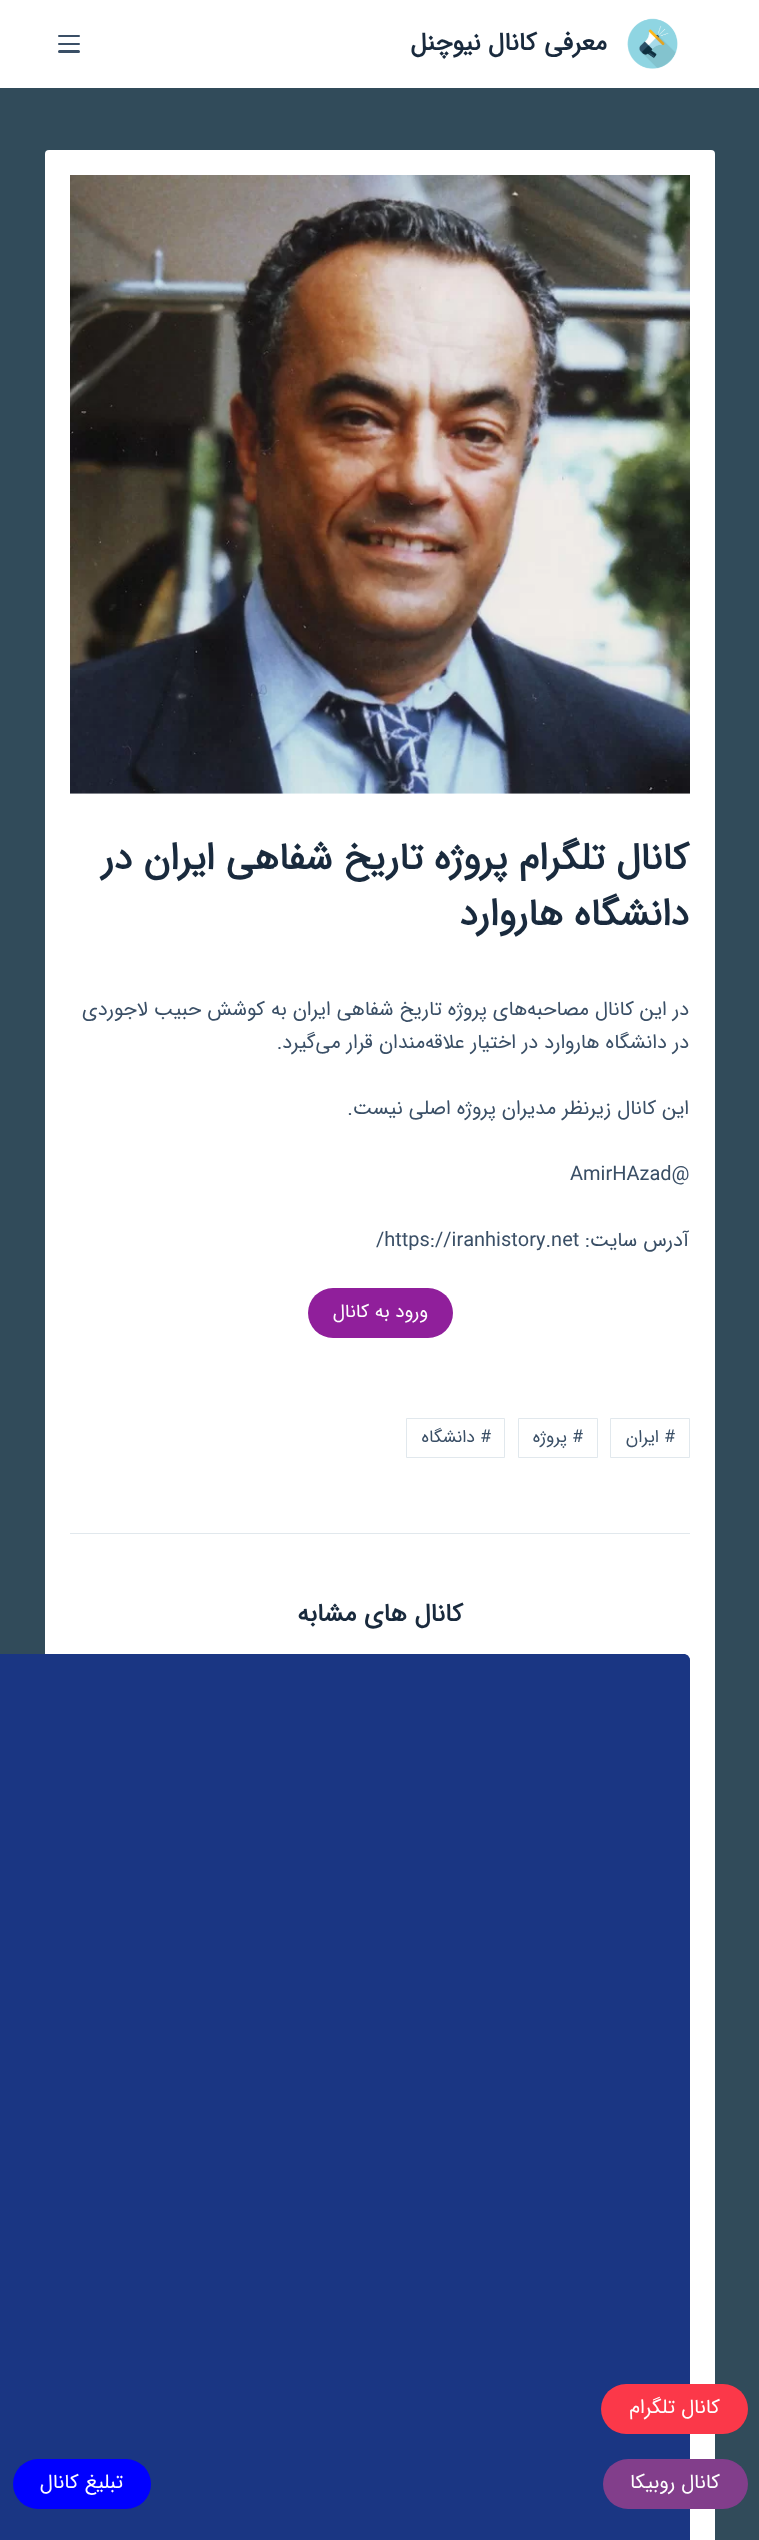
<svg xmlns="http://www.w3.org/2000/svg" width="759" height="2540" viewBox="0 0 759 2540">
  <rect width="100%" height="100%" fill="#314b5a"/>
  <path d="M0 0h759v88H0z" fill="#fff"/>
  <image x="627" y="18" width="51" height="51" href="img/1.png"/>
  <rect x="58" y="35" width="22" height="2" rx="1" fill="#3a4f66"/>
  <rect x="58" y="43" width="22" height="2" rx="1" fill="#3a4f66"/>
  <rect x="58" y="50" width="22" height="3" rx="1.5" fill="#3a4f66"/>
  <rect x="45" y="150" width="670" height="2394" rx="4" fill="#fff"/>
  <image x="70" y="175" width="620" height="619" href="img/2.png"/>
  <rect x="308" y="1288" width="145" height="50" rx="25" fill="#901f9b"/>
  <path d="M610.5 1418.5h79v39H610.5z" fill="none" stroke="#e1e8ed"/>
  <path d="M518.5 1418.5h79v39H518.5z" fill="none" stroke="#e1e8ed"/>
  <path d="M406.5 1418.5h98v39H406.5z" fill="none" stroke="#e1e8ed"/>
  <path d="M70 1533h620v1H70z" fill="#e1e8ed"/>
  <image x="0" y="1654" width="690" height="886" href="img/3.png"/>
  <rect x="601" y="2384" width="147" height="50" rx="25" fill="#fb3849"/>
  <rect x="603" y="2459" width="145" height="50" rx="25" fill="#823e8b"/>
  <rect x="13" y="2459" width="138" height="50" rx="25" fill="#00f"/>
  <text x="607" y="50" font-family="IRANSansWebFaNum" font-size="25" font-weight="bold" direction="rtl" fill="#192a3d">معرفی کانال نیوچنل</text>
  <g font-family="IRANSansWebFaNum" font-size="37.5" font-weight="bold" direction="rtl" fill="#192a3d">
    <text x="689" y="869">کانال تلگرام پروژه تاریخ شفاهی ایران در</text>
    <text x="689" y="925">دانشگاه هاروارد</text>
  </g>
  <g font-family="IRANSansWebFaNum" font-size="20" direction="rtl" fill="#3a4f66">
    <text x="689" y="1015">در این کانال مصاحبه‌های پروژه‌ تاریخ شفاهی ایران به کوشش حبیب لاجوردی</text>
    <text x="689" y="1048">در دانشگاه هاروارد در اختیار علاقه‌مندان قرار می‌گیرد.</text>
    <text x="689" y="1114">این کانال زیرنظر مدیران پروژه اصلی نیست.</text>
  </g>
  <text x="570" y="1180" font-family="IRANSansWebFaNum" font-size="20" fill="#3a4f66">AmirHAzad@</text>
  <text x="689" y="1246" font-family="IRANSansWebFaNum" font-size="20" direction="rtl" fill="#3a4f66">آدرس سایت:</text>
  <text x="376" y="1246" font-family="IRANSansWebFaNum" font-size="20" fill="#3a4f66">/https://iranhistory.net</text>
  <text x="428" y="1317" font-family="IRANSansWebFaNum" font-size="18.75" direction="rtl" fill="#fff">ورود به کانال</text>
  <g font-family="IRANSansWebFaNum" font-size="17.5" direction="rtl" fill="#3a4f66">
    <text x="675" y="1442"># ایران</text>
    <text x="583" y="1442"># پروژه</text>
    <text x="491" y="1442"># دانشگاه</text>
  </g>
  <text x="463" y="1621" font-family="IRANSansWebFaNum" font-size="25" font-weight="bold" direction="rtl" fill="#192a3d">کانال های مشابه</text>
  <g font-family="IRANSansWebFaNum" font-size="20" direction="rtl" fill="#fff">
    <text x="720" y="2413">کانال تلگرام</text>
    <text x="720" y="2488">کانال روبیکا</text>
    <text x="123" y="2488">تبلیغ کانال</text>
  </g>
</svg>
